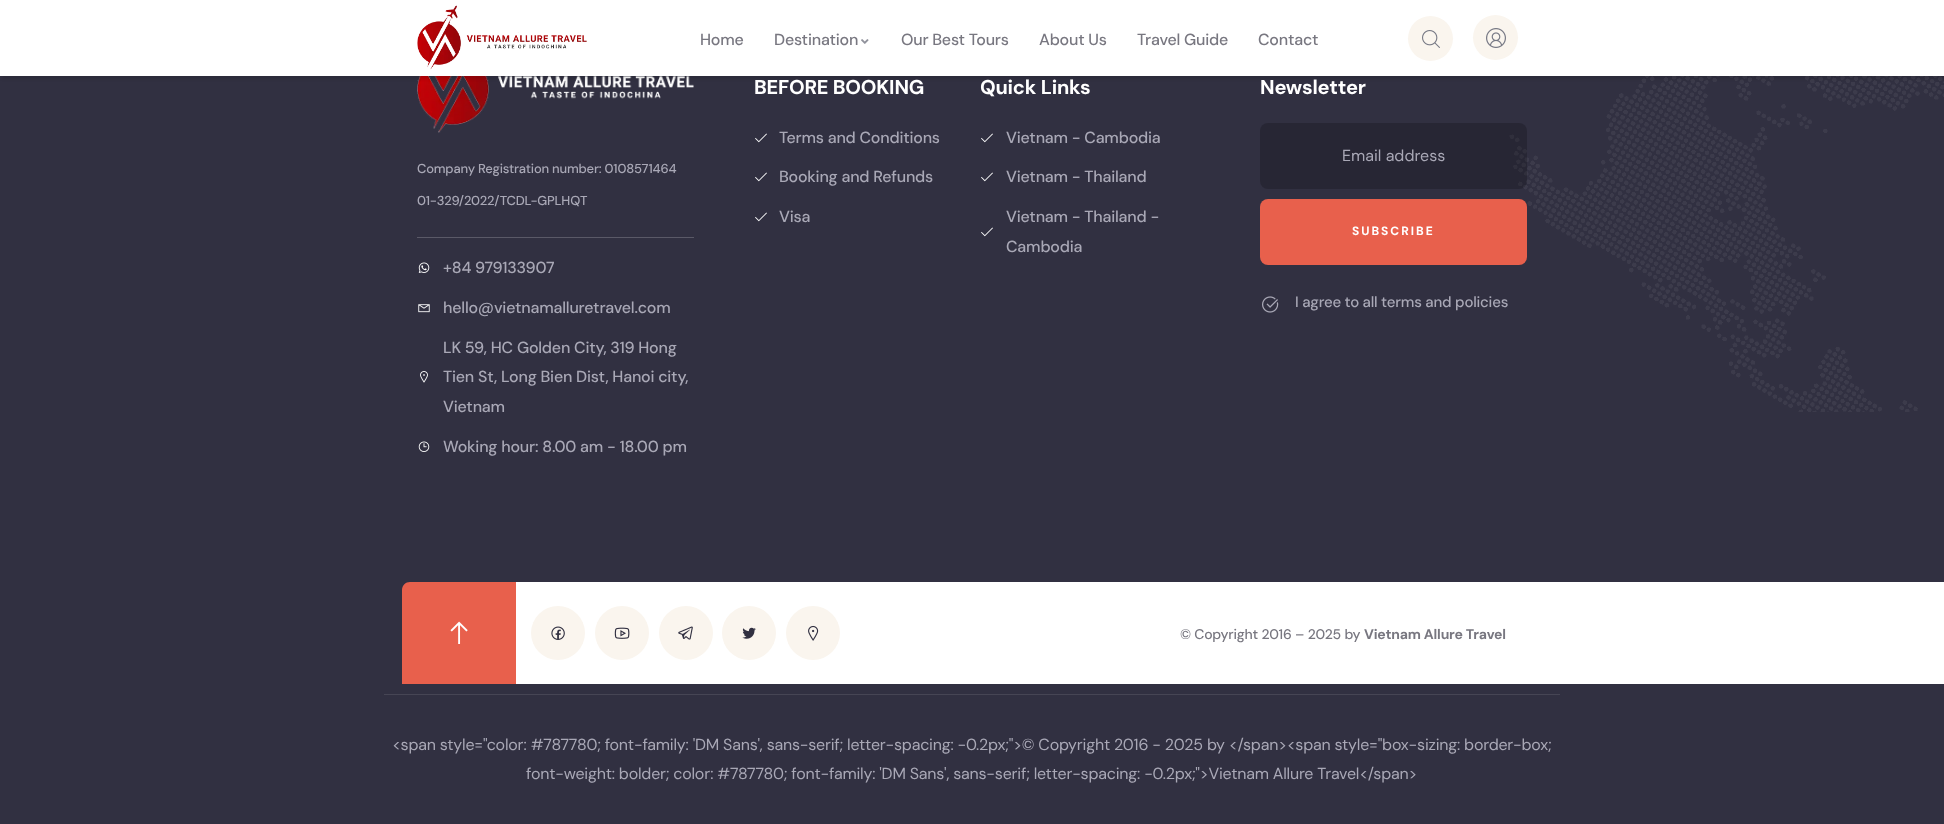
<svg xmlns="http://www.w3.org/2000/svg" width="1944" height="824" viewBox="0 0 1944 824">
  <rect width="100%" height="100%" fill="#313041"/>
  <image x="1509" y="76" width="435" height="336" href="img/5.png"/>
  <image x="417" y="76" width="277" height="57" href="img/6.png"/>
  <path d="M2 3h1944v76H2z" fill="#0000001a" filter="blur(1.5px)"/>
  <path d="M0 0h1944v76H0z" fill="#fff"/>
  <image x="417" y="5" width="170" height="65" href="img/1.png"/>
  <image x="861" y="39" width="8" height="5" href="img/2.png"/>
  <circle cx="1430.5" cy="38.5" r="22.5" fill="#faf5ee"/>
  <image x="1422" y="30" width="18" height="18" href="img/3.png"/>
  <circle cx="1495.5" cy="37.5" r="22.5" fill="#faf5ee"/>
  <image x="1486" y="28" width="20" height="20" href="img/4.png"/>
  <path d="M417 237h277v1H417z" fill="#5a5967"/>
  <image x="418" y="262" width="12" height="11" href="img/7.png"/>
  <image x="418" y="304" width="12" height="9" href="img/8.png"/>
  <image x="420" y="371" width="8" height="12" href="img/9.png"/>
  <image x="418" y="441" width="12" height="11" href="img/10.png"/>
  <image x="755" y="133" width="12" height="10" href="img/11.png"/>
  <image x="755" y="172" width="12" height="10" href="img/11.png"/>
  <image x="755" y="212" width="12" height="10" href="img/11.png"/>
  <image x="981" y="133" width="12" height="10" href="img/11.png"/>
  <image x="981" y="172" width="12" height="10" href="img/11.png"/>
  <image x="981" y="227" width="12" height="10" href="img/11.png"/>
  <rect x="1260" y="123" width="267" height="66" rx="8" fill="#00000033"/>
  <rect x="1260" y="199" width="267" height="66" rx="8" fill="#e8604c"/>
  <image x="1262" y="296" width="17" height="17" href="img/12.png"/>
  <path d="M410 582H516V684H402V590C402 585.5 405.5 582 410 582Z" fill="#e8604c"/>
  <image x="450" y="621" width="18" height="23" href="img/13.png"/>
  <path d="M516 582h1428v102H516z" fill="#fff"/>
  <circle cx="558" cy="633" r="27" fill="#faf5ee"/>
  <image x="551" y="626" width="14" height="14" href="img/14.png"/>
  <circle cx="622" cy="633" r="27" fill="#faf5ee"/>
  <image x="614" y="627" width="16" height="12" href="img/15.png"/>
  <circle cx="686" cy="633" r="27" fill="#faf5ee"/>
  <image x="678" y="626" width="15" height="14" href="img/16.png"/>
  <circle cx="749" cy="633" r="27" fill="#faf5ee"/>
  <image x="742" y="627" width="14" height="12" href="img/17.png"/>
  <circle cx="813" cy="633" r="27" fill="#faf5ee"/>
  <image x="808" y="625" width="11" height="16" href="img/18.png"/>
  <path d="M384 694h1176v1H384z" fill="#464554"/>
  <g font-family="DM Sans" font-size="16" font-weight="500" letter-spacing="-0.2" fill="#787780">
    <text x="700" y="45">Home</text>
    <text x="774" y="45">Destination</text>
    <text x="901" y="45">Our Best Tours</text>
    <text x="1039" y="45">About Us</text>
    <text x="1137" y="45">Travel Guide</text>
    <text x="1258" y="45">Contact</text>
  </g>
  <g font-family="DM Sans" font-size="13" font-weight="500" letter-spacing="-0.2" fill="#a9a8b6">
    <text x="417" y="173">Company Registration number: 0108571464</text>
    <text x="417" y="205">01-329/2022/TCDL-GPLHQT</text>
  </g>
  <g font-family="DM Sans" font-size="16" font-weight="500" letter-spacing="-0.2" fill="#a9a8b6">
    <text x="443" y="273">+84 979133907</text>
    <text x="443" y="313">hello@vietnamalluretravel.com</text>
    <text x="443" y="353">LK 59, HC Golden City, 319 Hong</text>
    <text x="443" y="382">Tien St, Long Bien Dist, Hanoi city,</text>
    <text x="443" y="412">Vietnam</text>
    <text x="443" y="452">Woking hour: 8.00 am - 18.00 pm</text>
  </g>
  <text x="754" y="94" font-family="DM Sans" font-size="20" font-weight="bold" letter-spacing="-0.2" fill="#fff">BEFORE BOOKING</text>
  <g font-family="DM Sans" font-size="16" font-weight="500" letter-spacing="-0.2" fill="#a9a8b6">
    <text x="779" y="143">Terms and Conditions</text>
    <text x="779" y="182">Booking and Refunds</text>
    <text x="779" y="222">Visa</text>
  </g>
  <text x="980" y="94" font-family="DM Sans" font-size="20" font-weight="bold" letter-spacing="-0.2" fill="#fff">Quick Links</text>
  <g font-family="DM Sans" font-size="16" font-weight="500" letter-spacing="-0.2" fill="#a9a8b6">
    <text x="1006" y="143">Vietnam - Cambodia</text>
    <text x="1006" y="182">Vietnam - Thailand</text>
    <text x="1006" y="222">Vietnam - Thailand -</text>
    <text x="1006" y="252">Cambodia</text>
  </g>
  <text x="1260" y="94" font-family="DM Sans" font-size="20" font-weight="bold" letter-spacing="-0.2" fill="#fff">Newsletter</text>
  <text x="1342" y="161" font-family="DM Sans" font-size="16" fill="#a9a8b6">Email address</text>
  <text x="1352" y="235" font-family="DM Sans" font-size="12" font-weight="bold" letter-spacing="2" fill="#fff">SUBSCRIBE</text>
  <text x="1295" y="307" font-family="DM Sans" font-size="15" font-weight="500" letter-spacing="-0.2" fill="#a9a8b6">I agree to all terms and policies</text>
  <text x="1180" y="639" font-family="DM Sans" font-size="14" font-weight="500" letter-spacing="-0.2" fill="#787780">© Copyright 2016 – 2025 by</text>
  <text x="1364" y="639" font-family="DM Sans" font-size="14" font-weight="bold" letter-spacing="-0.2" fill="#787780">Vietnam Allure Travel</text>
  <g font-family="DM Sans" font-size="16" letter-spacing="-0.2" fill="#a9a8b6">
    <text x="392" y="750">&lt;span style="color: #787780; font-family: 'DM Sans', sans-serif; letter-spacing: -0.2px;"&gt;© Copyright 2016 - 2025 by &lt;/span&gt;&lt;span style="box-sizing: border-box;</text>
    <text x="526" y="779">font-weight: bolder; color: #787780; font-family: 'DM Sans', sans-serif; letter-spacing: -0.2px;"&gt;Vietnam Allure Travel&lt;/span&gt;</text>
  </g>
</svg>
